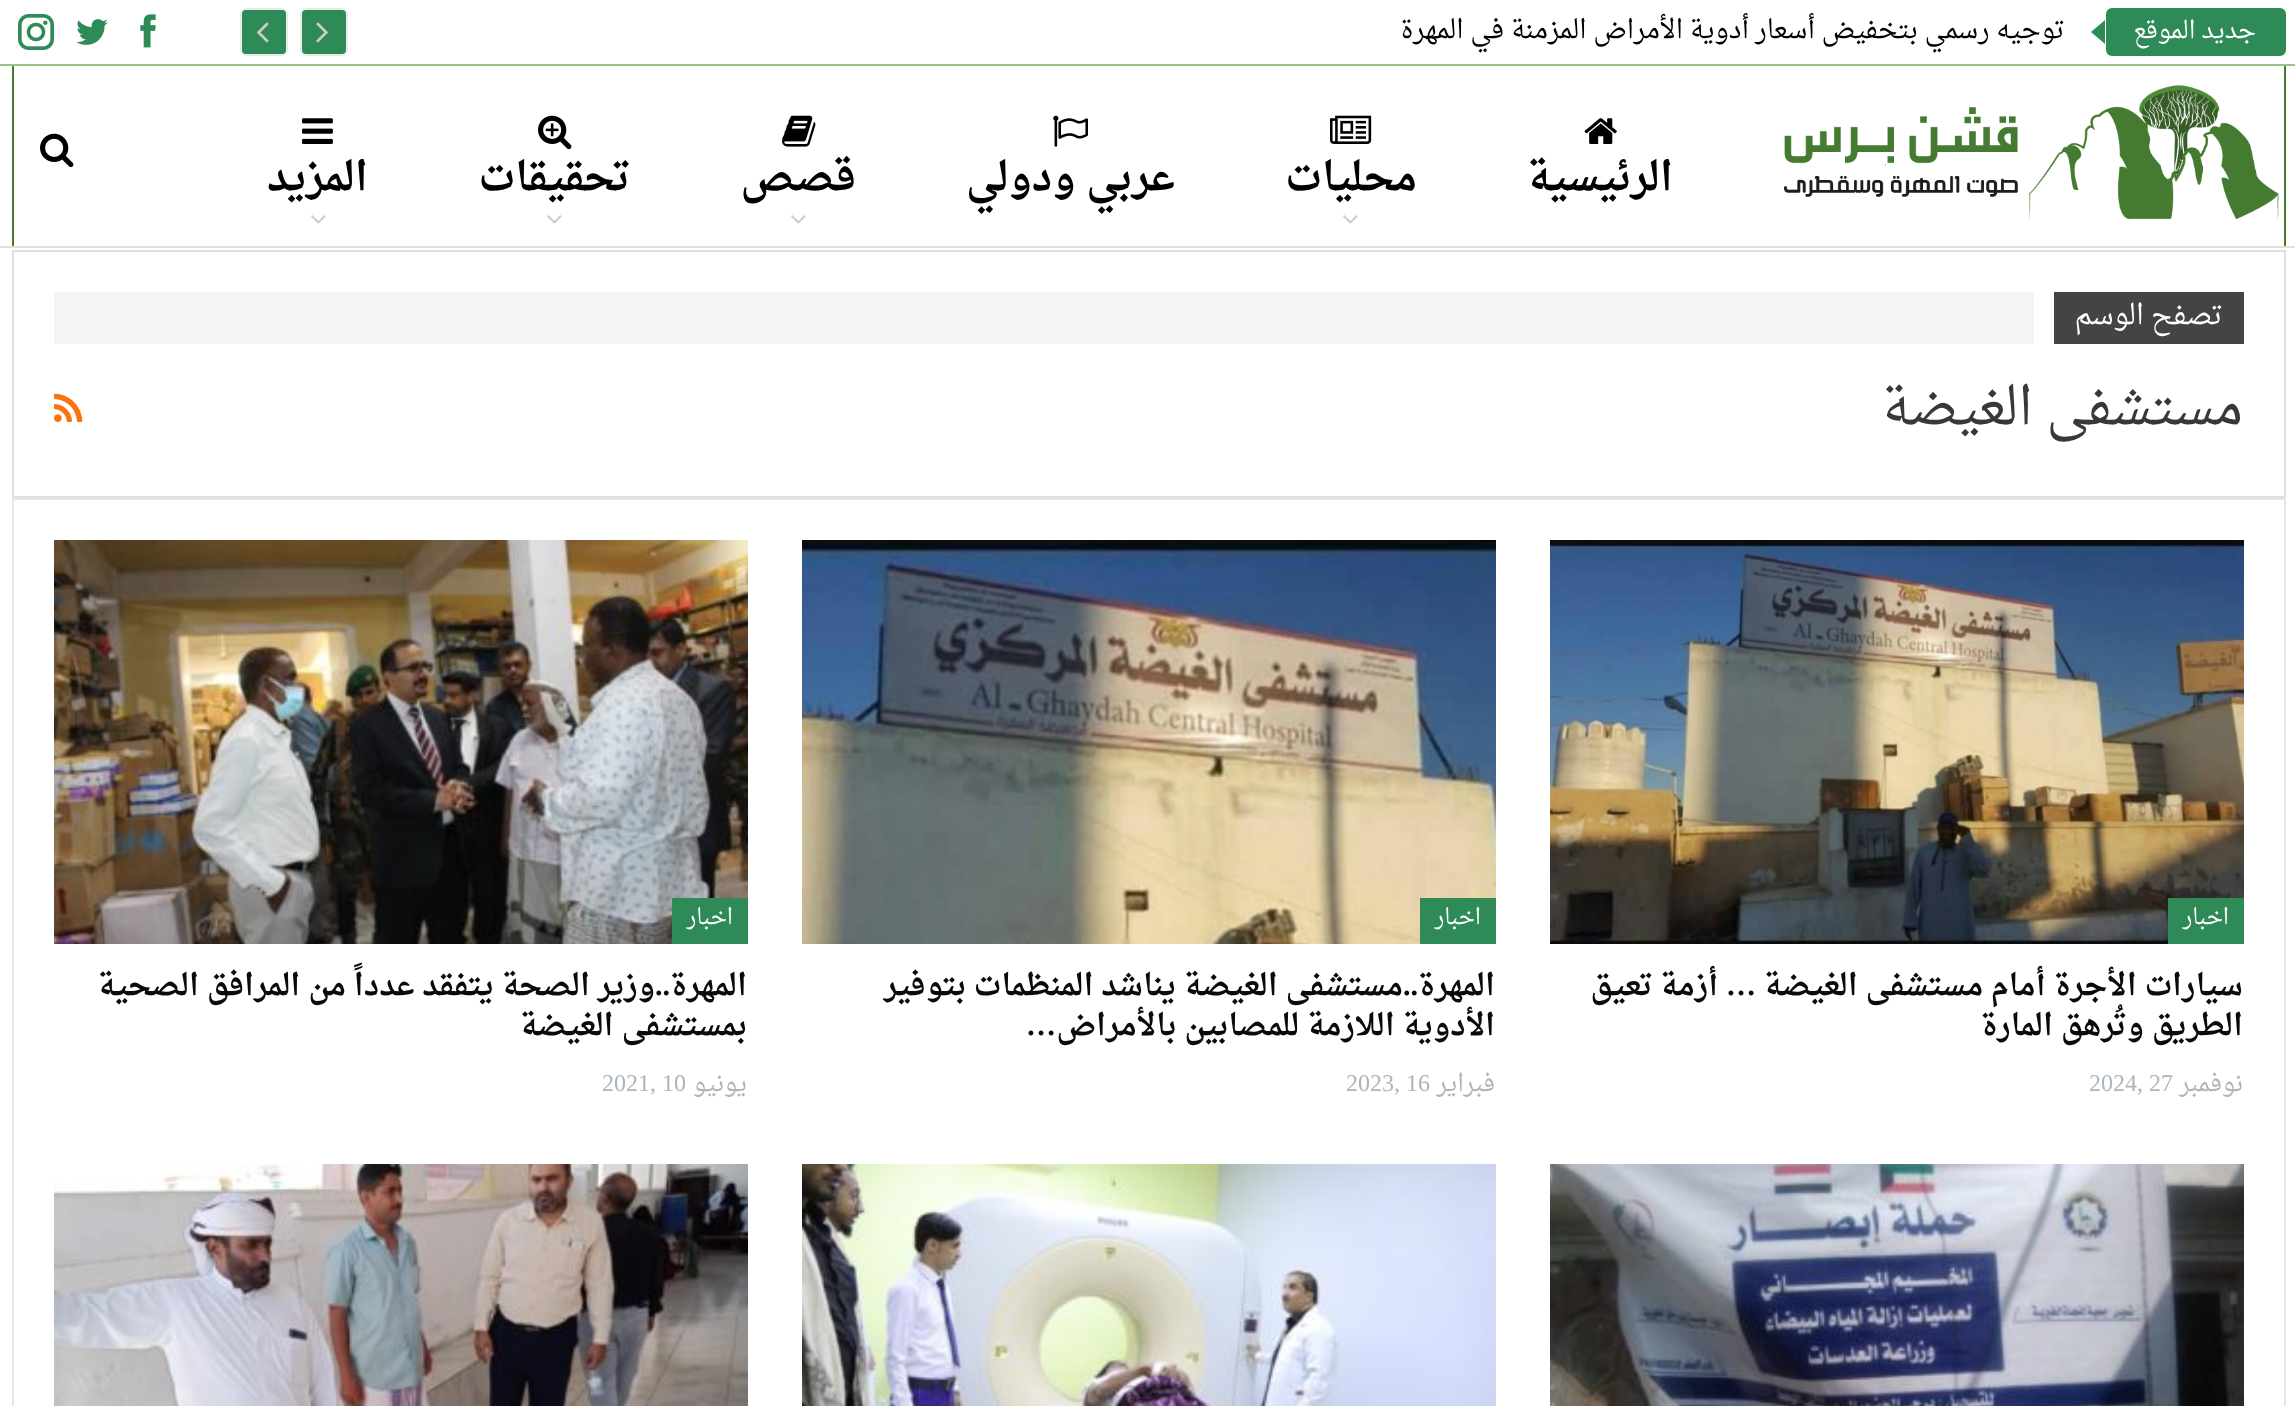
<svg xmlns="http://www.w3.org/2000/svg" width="2295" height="1406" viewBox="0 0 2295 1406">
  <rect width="100%" height="100%" fill="#fff"/>
  <path d="M0 246h2295v2H0z" fill="#e0e0e0"/>
  <path d="M0 64h2295v2H0z" fill="#9dc183"/>
  <rect x="2106" y="8" width="180" height="48" rx="6" fill="#2e8b57"/>
  <path d="M2105 20V44L2091 32Z" fill="#2e8b57"/>
  <rect x="301" y="9" width="46" height="46" rx="5" fill="#2e8b57" stroke="#eaeaea" stroke-width="2"/>
  <image x="316" y="22" width="12" height="21" href="img/1.png"/>
  <rect x="241" y="9" width="46" height="46" rx="5" fill="#2e8b57" stroke="#eaeaea" stroke-width="2"/>
  <image x="257" y="22" width="12" height="21" href="img/2.png"/>
  <image x="140" y="14" width="16" height="34" href="img/3.png"/>
  <image x="76" y="19" width="32" height="26" href="img/4.png"/>
  <image x="18" y="14" width="36" height="36" href="img/5.png"/>
  <path d="M2284 66h2v180H2284z" fill="#457b30"/>
  <path d="M12 66h2v180H12z" fill="#457b30"/>
  <image x="1784" y="85" width="495" height="135" href="img/6.png"/>
  <image x="40" y="133" width="34" height="35" href="img/7.png"/>
  <image x="1584" y="118" width="33" height="26" href="img/8.png"/>
  <image x="1330" y="115" width="42" height="29" href="img/9.png"/>
  <image x="1343" y="215" width="15" height="9" href="img/10.png"/>
  <image x="1053" y="115" width="35" height="32" href="img/11.png"/>
  <image x="782" y="115" width="34" height="32" href="img/12.png"/>
  <image x="791" y="215" width="15" height="9" href="img/10.png"/>
  <image x="538" y="115" width="34" height="35" href="img/13.png"/>
  <image x="547" y="215" width="15" height="9" href="img/10.png"/>
  <image x="302" y="118" width="31" height="26" href="img/14.png"/>
  <image x="311" y="215" width="15" height="9" href="img/10.png"/>
  <path d="M13 251h2272v246H13z" fill="none" stroke="#e0e0e0" stroke-width="2"/>
  <path d="M2054 292h190v52H2054z" fill="#444"/>
  <path d="M54 292h1980v52H54z" fill="#f5f5f5"/>
  <image x="54" y="393" width="29" height="29" href="img/15.png"/>
  <path d="M13 499h2272v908H13z" fill="none" stroke="#e6e6e6" stroke-width="2"/>
  <image x="1550" y="540" width="694" height="404" href="img/16.png"/>
  <path d="M2168 898h76v46H2168z" fill="#2e8b57"/>
  <image x="802" y="540" width="694" height="404" href="img/17.png"/>
  <path d="M1420 898h76v46H1420z" fill="#2e8b57"/>
  <image x="54" y="540" width="694" height="404" href="img/18.png"/>
  <path d="M672 898h76v46H672z" fill="#2e8b57"/>
  <image x="1550" y="1164" width="694" height="242" href="img/19.png"/>
  <image x="802" y="1164" width="694" height="242" href="img/20.png"/>
  <image x="54" y="1164" width="694" height="242" href="img/21.png"/>
  <text x="2256" y="38" font-family="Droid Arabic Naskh" font-size="24" direction="rtl" fill="#fff">جديد الموقع</text>
  <text x="2065" y="38" font-family="Droid Arabic Naskh" font-size="26" direction="rtl" fill="#000">توجيه رسمي بتخفيض أسعار أدوية الأمراض المزمنة في المهرة</text>
  <g font-family="Droid Arabic Naskh" font-size="40" font-weight="bold" direction="rtl" fill="#000">
    <text x="1673" y="190">الرئيسية</text>
    <text x="1417" y="190">محليات</text>
    <text x="1175" y="190">عربي ودولي</text>
    <text x="856" y="190">قصص</text>
    <text x="630" y="190">تحقيقات</text>
    <text x="368" y="190">المزيد</text>
  </g>
  <text x="2223" y="324" font-family="Droid Arabic Naskh" font-size="28" direction="rtl" fill="#fff">تصفح الوسم</text>
  <text x="2243" y="424" font-family="Droid Arabic Naskh" font-size="52" direction="rtl" fill="#383838">مستشفى الغيضة</text>
  <text x="2229" y="924" font-family="Droid Arabic Naskh" font-size="22" direction="rtl" fill="#fff">اخبار</text>
  <text x="2243" y="995" font-family="Droid Arabic Naskh" font-size="30" font-weight="bold" direction="rtl" fill="#0a0a0a">سيارات الأجرة أمام مستشفى الغيضة</text>
  <text x="1756" y="995" font-family="Liberation Serif" font-size="30" font-weight="bold" direction="rtl" fill="#0a0a0a">…</text>
  <g font-family="Droid Arabic Naskh" font-size="30" font-weight="bold" direction="rtl" fill="#0a0a0a">
    <text x="1718" y="995">أزمة تعيق</text>
    <text x="2243" y="1035">الطريق وتُرهق المارة</text>
  </g>
  <text x="2243" y="1091" font-family="Droid Arabic Naskh" font-size="24" direction="rtl" fill="#adb5bd">نوفمبر</text>
  <text x="2089" y="1091" font-family="Liberation Serif" font-size="24" fill="#adb5bd">2024, 27</text>
  <text x="1481" y="924" font-family="Droid Arabic Naskh" font-size="22" direction="rtl" fill="#fff">اخبار</text>
  <text x="1495" y="995" font-family="Droid Arabic Naskh" font-size="30" font-weight="bold" direction="rtl" fill="#0a0a0a">المهرة</text>
  <text x="1418" y="995" font-family="Liberation Serif" font-size="30" font-weight="bold" direction="rtl" fill="#0a0a0a">..</text>
  <g font-family="Droid Arabic Naskh" font-size="30" font-weight="bold" direction="rtl" fill="#0a0a0a">
    <text x="1403" y="995">مستشفى الغيضة يناشد المنظمات بتوفير</text>
    <text x="1495" y="1035">الأدوية اللازمة للمصابين بالأمراض</text>
  </g>
  <text x="1056" y="1035" font-family="Liberation Serif" font-size="30" font-weight="bold" direction="rtl" fill="#0a0a0a">…</text>
  <text x="1495" y="1091" font-family="Droid Arabic Naskh" font-size="24" direction="rtl" fill="#adb5bd">فبراير</text>
  <text x="1346" y="1091" font-family="Liberation Serif" font-size="24" fill="#adb5bd">2023, 16</text>
  <text x="733" y="924" font-family="Droid Arabic Naskh" font-size="22" direction="rtl" fill="#fff">اخبار</text>
  <text x="747" y="995" font-family="Droid Arabic Naskh" font-size="30" font-weight="bold" direction="rtl" fill="#0a0a0a">المهرة</text>
  <text x="670" y="995" font-family="Liberation Serif" font-size="30" font-weight="bold" direction="rtl" fill="#0a0a0a">..</text>
  <g font-family="Droid Arabic Naskh" font-size="30" font-weight="bold" direction="rtl" fill="#0a0a0a">
    <text x="655" y="995">وزير الصحة يتفقد عدداً من المرافق الصحية</text>
    <text x="747" y="1035">بمستشفى الغيضة</text>
  </g>
  <text x="747" y="1091" font-family="Droid Arabic Naskh" font-size="24" direction="rtl" fill="#adb5bd">يونيو</text>
  <text x="602" y="1091" font-family="Liberation Serif" font-size="24" fill="#adb5bd">2021, 10</text>
</svg>
